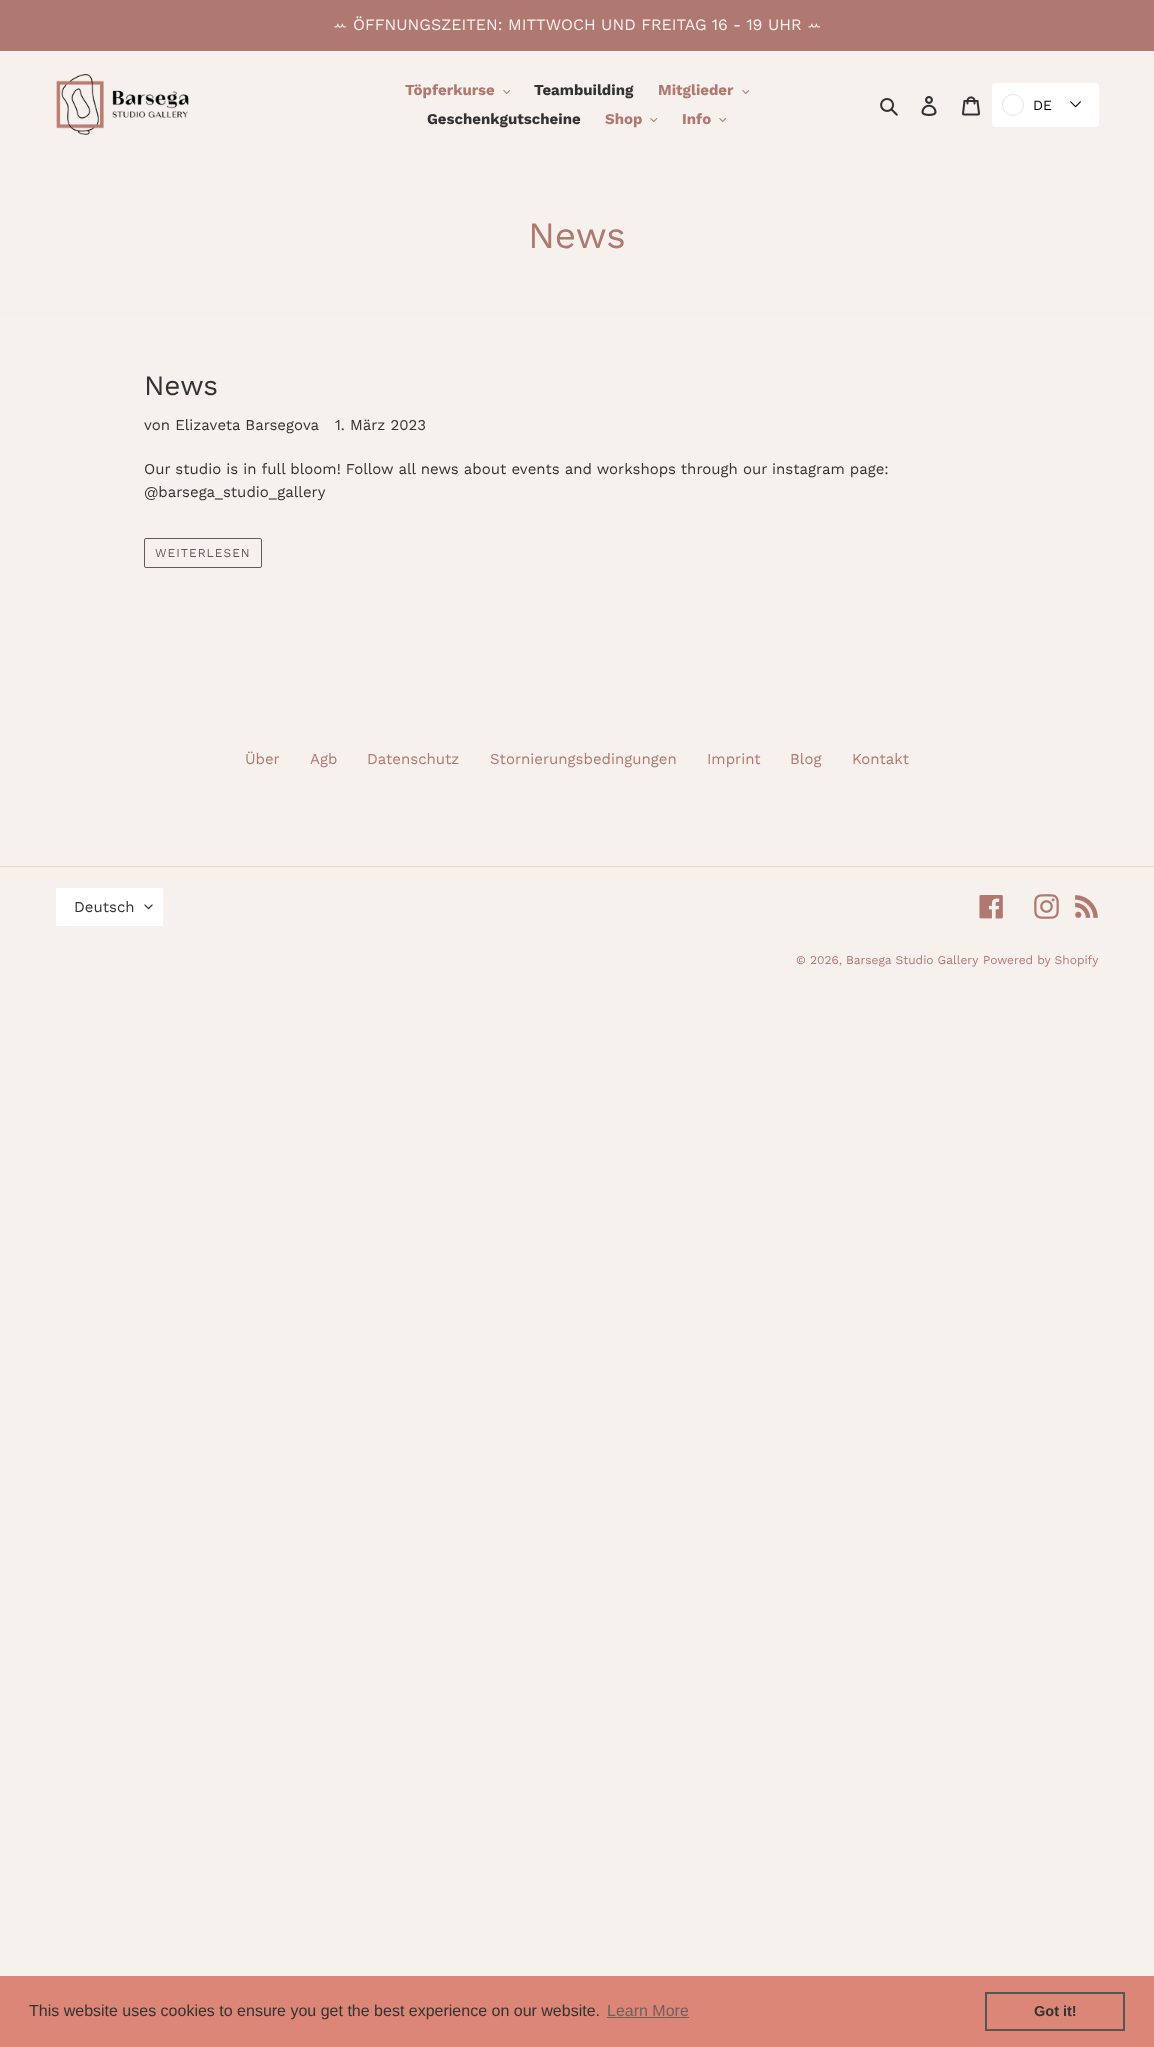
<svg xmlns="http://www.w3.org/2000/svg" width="1154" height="2047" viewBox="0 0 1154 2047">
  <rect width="100%" height="100%" fill="#f7f1ed"/>
  <path d="M0 0h1154v51H0z" fill="#af7871"/>
  <image x="56" y="74" width="133" height="61" href="img/1.png"/>
  <image x="503" y="90" width="7" height="4" href="img/2.png"/>
  <image x="742" y="90" width="7" height="4" href="img/2.png"/>
  <image x="650" y="118" width="8" height="4" href="img/3.png"/>
  <image x="719" y="118" width="8" height="4" href="img/3.png"/>
  <image x="880" y="98" width="18" height="18" href="img/4.png"/>
  <image x="921" y="96" width="16" height="20" href="img/5.png"/>
  <image x="962" y="96" width="18" height="20" href="img/6.png"/>
  <rect x="992" y="83" width="107" height="44" rx="4" fill="#fff"/>
  <circle cx="1013" cy="105" r="10.5" fill="none" stroke="#e6e3e3"/>
  <image x="1070" y="101" width="11" height="7" href="img/7.png"/>
  <path d="M0 313h1154v1H0z" fill="#edf0f5"/>
  <rect x="144.5" y="538.5" width="117" height="29" rx="1.5" fill="none" stroke="#685858"/>
  <path d="M0 866h1154v1H0z" fill="#e7d6ca"/>
  <rect x="55" y="887" width="109" height="40" rx="2" fill="#fff"/>
  <image x="144" y="904" width="9" height="6" href="img/8.png"/>
  <rect x="55.5" y="887.5" width="108" height="39" rx="1.5" fill="none" stroke="#f7f1ed"/>
  <image x="979" y="895" width="24" height="24" href="img/9.png"/>
  <image x="1034" y="894" width="25" height="25" href="img/10.png"/>
  <image x="1075" y="895" width="23" height="23" href="img/11.png"/>
  <path d="M0 1976h1154v71H0z" fill="#db8676"/>
  <path d="M607 2017h82v1H607z" fill="#705f5c"/>
  <path d="M986 1993h138v37H986z" fill="none" stroke="#555" stroke-width="2"/>
  <text x="333" y="30" font-family="FreeSans" font-size="16" fill="#f7f1ed">ꕀ</text>
  <text x="353" y="30" font-family="Work Sans" font-size="16" fill="#f7f1ed">ÖFFNUNGSZEITEN: MITTWOCH UND FREITAG 16 - 19 UHR</text>
  <text x="807" y="30" font-family="FreeSans" font-size="16" fill="#f7f1ed">ꕀ</text>
  <text x="405" y="95" font-family="Work Sans" font-size="15" font-weight="bold" fill="#af7871">Töpferkurse</text>
  <text x="534" y="95" font-family="Work Sans" font-size="15" font-weight="bold" fill="#333232">Teambuilding</text>
  <text x="658" y="95" font-family="Work Sans" font-size="15" font-weight="bold" fill="#af7871">Mitglieder</text>
  <text x="427" y="124" font-family="Work Sans" font-size="15" font-weight="bold" fill="#333232">Geschenkgutscheine</text>
  <g font-family="Work Sans" font-size="15" font-weight="bold" fill="#af7871">
    <text x="605" y="124">Shop</text>
    <text x="682" y="124">Info</text>
  </g>
  <text x="1033" y="110" font-family="Work Sans" font-size="14" fill="#000">DE</text>
  <text x="528" y="248" font-family="Work Sans" font-size="37" fill="#af7871">News</text>
  <text x="144" y="395" font-family="Work Sans" font-size="28" fill="#333232">News</text>
  <g font-family="Work Sans" font-size="15" fill="#333232">
    <text x="144" y="430">von Elizaveta Barsegova</text>
    <text x="335" y="430">1. März 2023</text>
    <text x="144" y="474">Our studio is in full bloom! Follow all news about events and workshops through our instagram page:</text>
    <text x="144" y="497">@barsega_studio_gallery</text>
  </g>
  <text x="155" y="557" font-family="Work Sans" font-size="12" letter-spacing="1" fill="#685858">WEITERLESEN</text>
  <g font-family="Work Sans" font-size="15" fill="#af7871">
    <text x="245" y="764">Über</text>
    <text x="310" y="764">Agb</text>
    <text x="367" y="764">Datenschutz</text>
    <text x="490" y="764">Stornierungsbedingungen</text>
    <text x="707" y="764">Imprint</text>
    <text x="790" y="764">Blog</text>
    <text x="852" y="764">Kontakt</text>
  </g>
  <text x="74" y="912" font-family="Work Sans" font-size="15" fill="#333232">Deutsch</text>
  <g font-family="Work Sans" font-size="12" fill="#af7871">
    <text x="796" y="964">© 2026, Barsega Studio Gallery</text>
    <text x="983" y="964">Powered by Shopify</text>
  </g>
  <text x="29" y="2016" font-family="Liberation Sans" font-size="16" fill="#333232">This website uses cookies to ensure you get the best experience on our website.</text>
  <text x="607" y="2016" font-family="Liberation Sans" font-size="16" fill="#705f5c">Learn More</text>
  <text x="1034" y="2016" font-family="Liberation Sans" font-size="14.5" font-weight="bold" fill="#333232">Got it!</text>
</svg>
